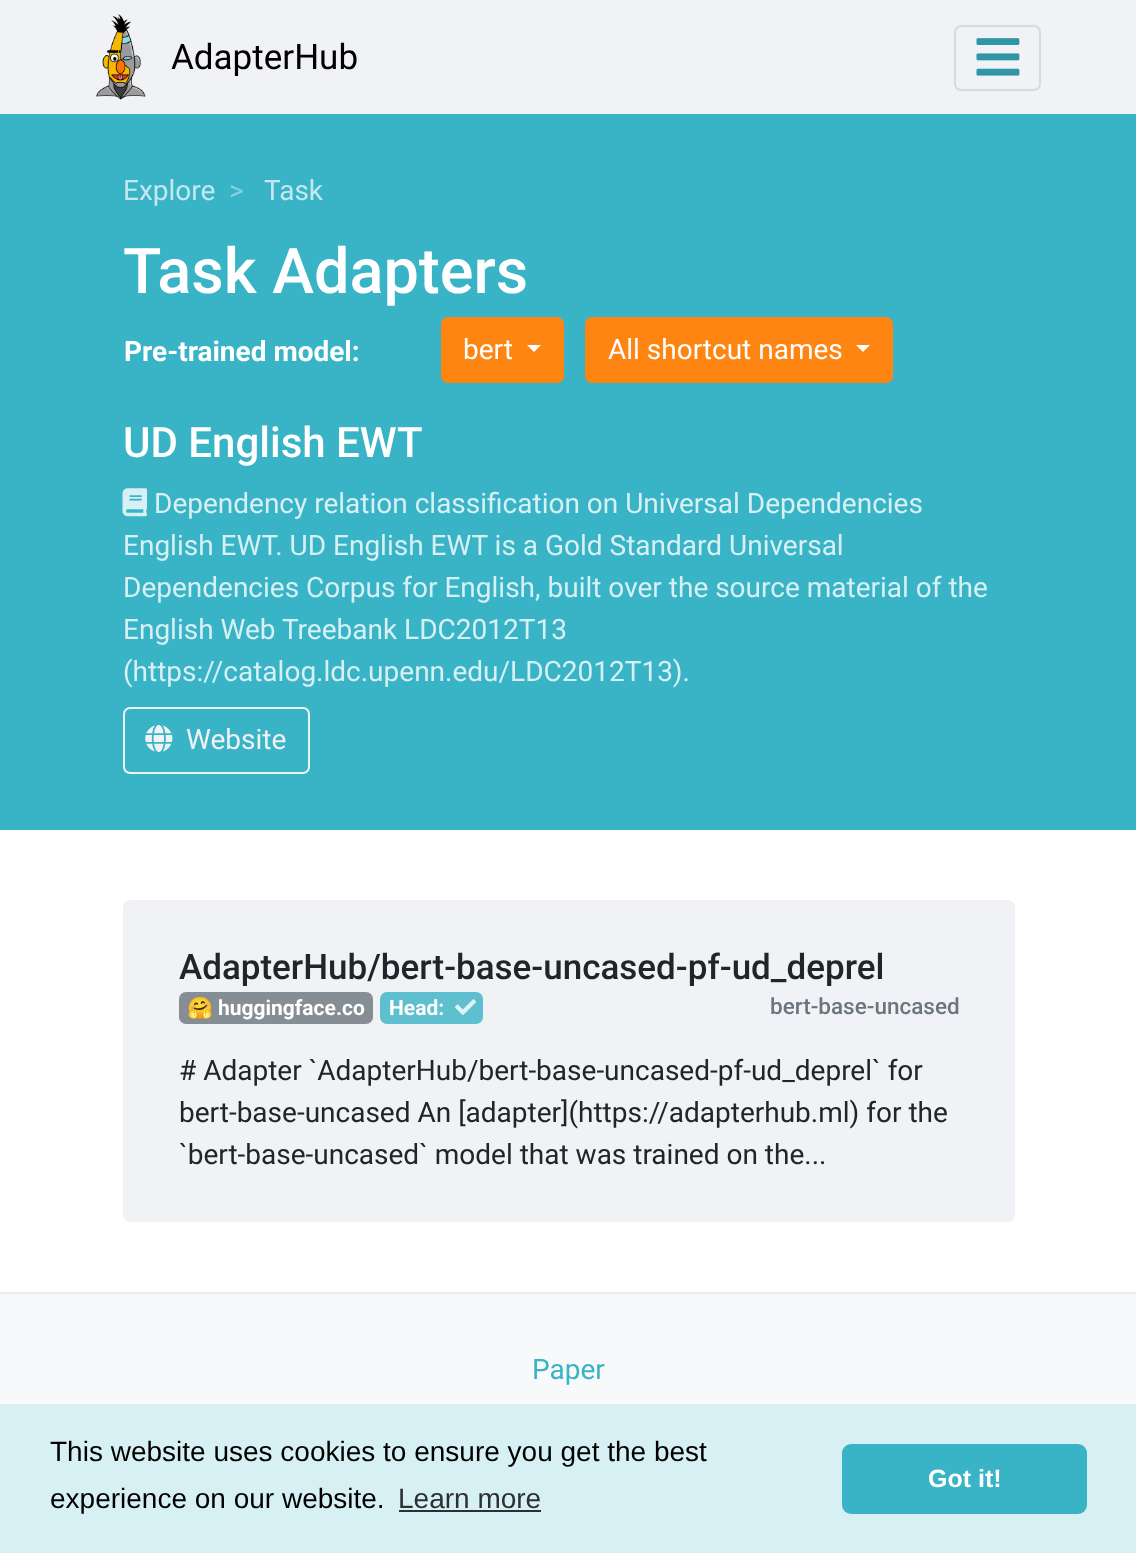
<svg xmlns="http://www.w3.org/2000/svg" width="1136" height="1553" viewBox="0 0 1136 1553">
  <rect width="100%" height="100%" fill="#fff"/>
  <path d="M0 0h1136v114H0z" fill="#f0f2f5"/>
  <image x="96" y="14" width="50" height="86" href="img/1.png"/>
  <rect x="955" y="26" width="85" height="64" rx="6" fill="none" stroke="#d8dadd" stroke-width="2"/>
  <image x="976" y="38" width="44" height="38" href="img/2.png"/>
  <path d="M0 114h1136v716H0z" fill="#39b3c6"/>
  <rect x="442" y="318" width="121" height="64" rx="6" fill="#ff8513" stroke="#ff8513" stroke-width="2"/>
  <path d="M527 345H541L534 352Z" fill="#fff"/>
  <rect x="586" y="318" width="306" height="64" rx="6" fill="#ff8513" stroke="#ff8513" stroke-width="2"/>
  <path d="M856 345H870L863 352Z" fill="#fff"/>
  <image x="122" y="488" width="25" height="29" href="img/3.png"/>
  <rect x="124" y="708" width="185" height="65" rx="6" fill="none" stroke="#f0f2f5" stroke-width="2"/>
  <image x="145" y="725" width="28" height="27" href="img/4.png"/>
  <rect x="123" y="900" width="892" height="322" rx="7" fill="#f0f2f5"/>
  <rect x="179" y="992" width="194" height="32" rx="7" fill="#868e95"/>
  <rect x="380" y="992" width="103" height="32" rx="7" fill="#5ec0cf"/>
  <image x="455" y="999" width="21" height="16" href="img/5.png"/>
  <path d="M0 1294h1136v110H0z" fill="#f8f9fa"/>
  <path d="M0 1292h1136v2H0z" fill="#e9ecef"/>
  <path d="M0 1404h1136v149H0z" fill="#d7f0f4"/>
  <path d="M399 1510h142v2H399z" fill="#2b3031"/>
  <rect x="842" y="1444" width="245" height="70" rx="9" fill="#39b3c6"/>
  <text x="171" y="69" font-family="Roboto" font-size="35" fill="#000">AdapterHub</text>
  <text x="123" y="200" font-family="Roboto" font-size="28" fill="#c4e8ee">Explore</text>
  <text x="229" y="200" font-family="Roboto" font-size="28" fill="#88d1dd">&gt;</text>
  <text x="264" y="200" font-family="Roboto" font-size="28" fill="#c4e8ee">Task</text>
  <text x="123" y="293" font-family="Roboto" font-size="63" font-weight="500" fill="#fff">Task Adapters</text>
  <text x="124" y="361" font-family="Roboto" font-size="28" font-weight="bold" fill="#fff">Pre-trained model:</text>
  <g font-family="Roboto" font-size="28" fill="#fff">
    <text x="463" y="359">bert</text>
    <text x="608" y="359">All shortcut names</text>
  </g>
  <text x="123" y="457" font-family="Roboto" font-size="42" font-weight="500" fill="#fff">UD English EWT</text>
  <g font-family="Roboto" font-size="28" fill="#d7f0f4">
    <text x="154" y="513">Dependency relation classification on Universal Dependencies</text>
    <text x="123" y="555">English EWT. UD English EWT is a Gold Standard Universal</text>
    <text x="123" y="597">Dependencies Corpus for English, built over the source material of the</text>
    <text x="123" y="639">English Web Treebank LDC2012T13</text>
    <text x="123" y="681">(https://catalog.ldc.upenn.edu/LDC2012T13).</text>
  </g>
  <text x="186" y="749" font-family="Roboto" font-size="28" fill="#f0f2f5">Website</text>
  <text x="179" y="979" font-family="Roboto" font-size="35" font-weight="500" fill="#212529">AdapterHub/bert-base-uncased-pf-ud_deprel</text>
  <text x="770" y="1014" font-family="Roboto" font-size="22.5" font-weight="500" fill="#6c757d">bert-base-uncased</text>
  <text x="187" y="1015" font-family="Noto Color Emoji" font-size="21" font-weight="bold" fill="#fff">🤗</text>
  <g font-family="Roboto" font-size="21" font-weight="bold" fill="#fff">
    <text x="218" y="1015">huggingface.co</text>
    <text x="389" y="1015">Head:</text>
  </g>
  <g font-family="Roboto" font-size="28" fill="#212529">
    <text x="179" y="1080"># Adapter `AdapterHub/bert-base-uncased-pf-ud_deprel` for</text>
    <text x="179" y="1122">bert-base-uncased An [adapter](https://adapterhub.ml) for the</text>
    <text x="179" y="1164">`bert-base-uncased` model that was trained on the...</text>
  </g>
  <text x="532" y="1379" font-family="Roboto" font-size="28" fill="#39b3c6">Paper</text>
  <g font-family="Liberation Sans" font-size="28" fill="#000">
    <text x="50" y="1461">This website uses cookies to ensure you get the best</text>
    <text x="50" y="1508">experience on our website.</text>
  </g>
  <text x="398" y="1508" font-family="Liberation Sans" font-size="28" fill="#2b3031">Learn more</text>
  <text x="928" y="1487" font-family="Liberation Sans" font-size="25" font-weight="bold" fill="#fff">Got it!</text>
</svg>
